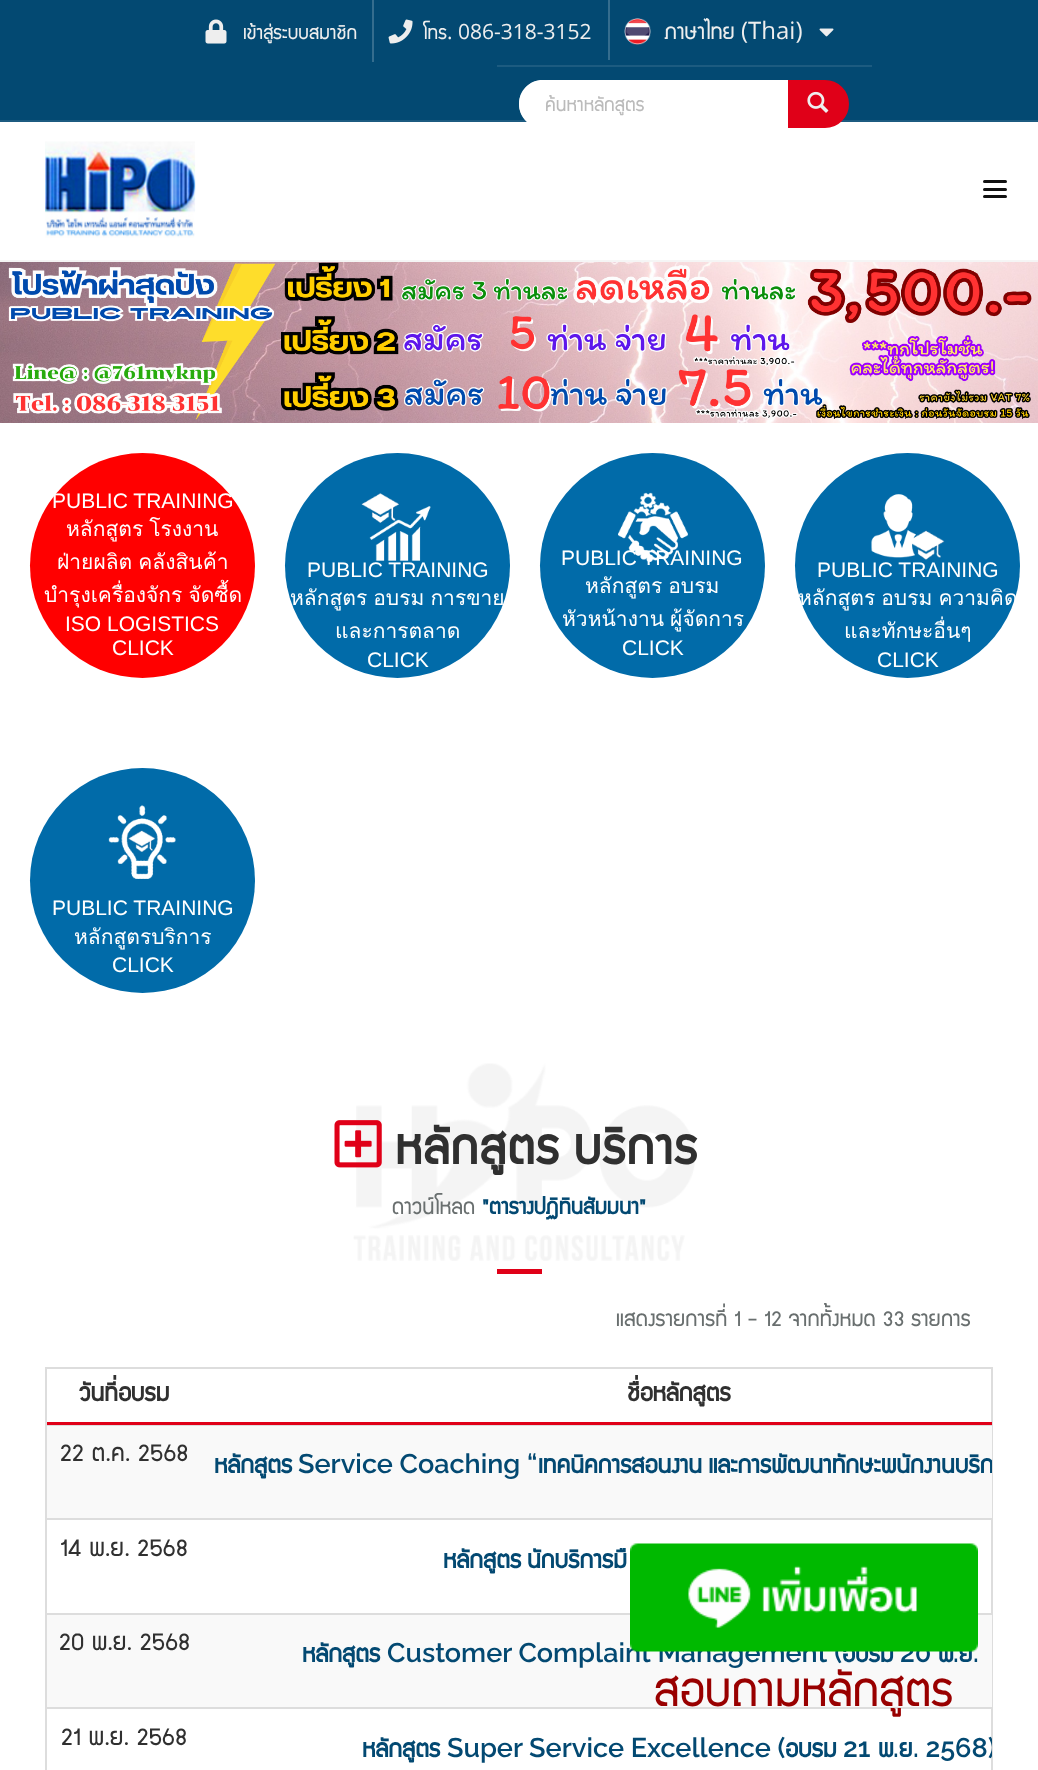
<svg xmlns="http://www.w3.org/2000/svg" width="1038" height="1770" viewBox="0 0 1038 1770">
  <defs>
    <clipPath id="clip1"><path d="M545 89h220v33H545z"/></clipPath>
    <clipPath id="clip2"><path d="M47 1368h945v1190H47z"/></clipPath>
  </defs>
  <rect width="100%" height="100%" fill="#fff"/>
  <path d="M0 0h1038v120H0z" fill="#034972"/>
  <path d="M0 120h1038v2H0z" fill="#1c5b80"/>
  <image x="205" y="19" width="22" height="25" href="img/1.png"/>
  <path d="M372 0h2v62H372z" fill="#356d8e"/>
  <image x="388" y="19" width="25" height="25" href="img/2.png"/>
  <path d="M608 0h2v60H608z" fill="#356d8e"/>
  <image x="624" y="18" width="27" height="27" href="img/3.png"/>
  <image x="819" y="28" width="15" height="9" href="img/4.png"/>
  <path d="M497 65h375v2H497z" fill="#1c5b80"/>
  <path d="M787.5 81.5H825C837.5 81.5 847.5 91.5 847.5 104C847.5 116.5 837.5 126.5 825 126.5H787.5Z" fill="#e00018" stroke="#e00018" stroke-width="3"/>
  <path d="M543 80H788V128H543C529.5 128 519 117.5 519 104C519 90.5 529.5 80 543 80Z" fill="#fff"/>
  <path d="M543 80H788V128H543C530 128 519 117 519 104C519 90 530 80 543 80ZM543 82H788V124H543C531 124 522 115 522 104C522 92 531 82 543 82Z" fill="#ffffffcc" fill-rule="evenodd"/>
  <image x="807" y="91" width="22" height="22" href="img/5.png"/>
  <path d="M0 260h1038v2H0z" fill="#f5f5f5"/>
  <image x="45" y="141" width="151" height="97" href="img/6.png"/>
  <rect x="983" y="188" width="24" height="3" rx="1.5" fill="#111"/>
  <rect x="983" y="180" width="24" height="3" rx="1.5" fill="#111"/>
  <rect x="983" y="195" width="24" height="3" rx="1.5" fill="#111"/>
  <image x="0" y="262" width="1038" height="161" href="img/7.png"/>
  <circle cx="142.5" cy="565.5" r="112.5" fill="#f00"/>
  <circle cx="397.5" cy="565.5" r="112.5" fill="#016ba9"/>
  <image x="361" y="493" width="70" height="68" href="img/8.png"/>
  <circle cx="652.5" cy="565.5" r="112.5" fill="#016ba9"/>
  <image x="618" y="492" width="70" height="70" href="img/9.png"/>
  <circle cx="907.5" cy="565.5" r="112.5" fill="#016ba9"/>
  <image x="871" y="494" width="74" height="66" href="img/10.png"/>
  <circle cx="142.5" cy="880.5" r="112.5" fill="#016ba9"/>
  <image x="108" y="805" width="68" height="74" href="img/11.png"/>
  <image x="353" y="1063" width="342" height="198" href="img/12.png"/>
  <image x="334" y="1120" width="48" height="48" href="img/13.png"/>
  <path d="M497 1269h45v5H497z" fill="#e00018"/>
  <path d="M46 1368h946v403H46z" fill="none" stroke="#ddd" stroke-width="2"/>
  <path d="M47 1422h945v3H47z" fill="#e00018"/>
  <path d="M47 1426h945v92H47z" fill="#f9f9f9"/>
  <path d="M47 1425h945v1H47z" fill="#ddd"/>
  <path d="M47 1518h945v2H47z" fill="#ddd"/>
  <path d="M47 1615h945v92H47z" fill="#f9f9f9"/>
  <path d="M47 1613h945v2H47z" fill="#ddd"/>
  <path d="M47 1707h945v2H47z" fill="#ddd"/>
  <g font-family="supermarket" font-size="21" fill="#eee">
    <text x="243" y="39">เข้าสู่ระบบสมาชิก</text>
    <text x="423" y="39">โทร</text>
  </g>
  <text x="447" y="39" font-family="Open Sans" font-size="21" fill="#eee">. 086-318-3152</text>
  <text x="664" y="39" font-family="supermarket" font-size="24" fill="#eee">ภาษาไทย</text>
  <text x="741" y="39" font-family="Open Sans" font-size="24" fill="#eee">(Thai)</text>
  <g clip-path="url(#clip1)">
    <text x="545" y="111" font-family="supermarket" font-size="21" fill="#bbb">ค้นหาหลักสูตร</text>
  </g>
  <text x="52" y="508" font-family="Liberation Sans" font-size="21" fill="#fff">PUBLIC TRAINING</text>
  <g font-family="Loma" font-size="21" fill="#fff">
    <text x="66" y="536" word-spacing="-1">หลักสูตร โรงงาน</text>
    <text x="57" y="569" word-spacing="-1">ฝ่ายผลิต คลังสินค้า</text>
    <text x="44" y="602" word-spacing="-1">บำรุงเครื่องจักร จัดซื้ด</text>
  </g>
  <g font-family="Liberation Sans" font-size="21" fill="#fff">
    <text x="65" y="631">ISO LOGISTICS</text>
    <text x="112" y="655">CLICK</text>
    <text x="307" y="577">PUBLIC TRAINING</text>
  </g>
  <g font-family="Loma" font-size="21" fill="#fff">
    <text x="290" y="605" word-spacing="-1">หลักสูตร อบรม การขาย</text>
    <text x="335" y="638">และการตลาด</text>
  </g>
  <g font-family="Liberation Sans" font-size="21" fill="#fff">
    <text x="367" y="667">CLICK</text>
    <text x="561" y="565">PUBLIC TRAINING</text>
  </g>
  <g font-family="Loma" font-size="21" fill="#fff">
    <text x="585" y="593" word-spacing="-1">หลักสูตร อบรม</text>
    <text x="562" y="626" word-spacing="-1">หัวหน้างาน ผู้จัดการ</text>
  </g>
  <g font-family="Liberation Sans" font-size="21" fill="#fff">
    <text x="622" y="655">CLICK</text>
    <text x="817" y="577">PUBLIC TRAINING</text>
  </g>
  <g font-family="Loma" font-size="21" fill="#fff">
    <text x="798" y="605" word-spacing="-1">หลักสูตร อบรม ความคิด</text>
    <text x="844" y="638">และทักษะอื่นๆ</text>
  </g>
  <g font-family="Liberation Sans" font-size="21" fill="#fff">
    <text x="877" y="667">CLICK</text>
    <text x="52" y="915">PUBLIC TRAINING</text>
  </g>
  <text x="74" y="944" font-family="Loma" font-size="21" fill="#fff">หลักสูตรบริการ</text>
  <text x="112" y="972" font-family="Liberation Sans" font-size="21" fill="#fff">CLICK</text>
  <text x="395" y="1164" word-spacing="-3" font-family="supermarket" font-size="54" font-weight="bold" letter-spacing="1.5" fill="#303030">หลักสูตร บริการ</text>
  <text x="392" y="1214" font-family="supermarket" font-size="24" fill="#696f6f">ดาวน์โหลด</text>
  <text x="482" y="1214" font-family="supermarket" font-size="24" font-weight="bold" fill="#034972">"ตารางปฏิทินสัมมนา"</text>
  <text x="616" y="1326" font-family="supermarket" font-size="24" fill="#696f6f">แสดงรายการที่ 1 - 12 จากทั้งหมด 33 รายการ</text>
  <g font-family="supermarket" font-size="27" font-weight="bold" fill="#303030">
    <text x="79" y="1401">วันที่อบรม</text>
    <text x="627" y="1401">ชื่อหลักสูตร</text>
  </g>
  <text x="60" y="1461" font-family="supermarket" font-size="27" fill="#303030">22 ต.ค. 2568</text>
  <text x="214" y="1473" font-family="supermarket" font-size="27" font-weight="bold" fill="#034972">หลักสูตร</text>
  <text x="298" y="1473" font-family="Raleway" font-size="27" font-weight="600" fill="#034972">Service Coaching “</text>
  <g clip-path="url(#clip2)">
    <text x="538" y="1473" word-spacing="-1" font-family="supermarket" font-size="27" font-weight="bold" fill="#034972">เทคนิคการสอนงาน และการพัฒนาทักษะพนักงานบริก</text>
  </g>
  <text x="60" y="1556" font-family="supermarket" font-size="27" fill="#303030">14 พ.ย. 2568</text>
  <g font-family="supermarket" font-size="27" font-weight="bold" fill="#034972">
    <text x="443" y="1568">หลักสูตร</text>
    <text x="527" y="1568">นักบริการมื</text>
  </g>
  <text x="59" y="1650" font-family="supermarket" font-size="27" fill="#303030">20 พ.ย. 2568</text>
  <text x="302" y="1662" font-family="supermarket" font-size="27" font-weight="bold" fill="#034972">หลักสูตร</text>
  <text x="387" y="1662" font-family="Raleway" font-size="27" font-weight="600" fill="#034972">Customer Complaint Management (</text>
  <text x="842" y="1662" font-family="supermarket" font-size="27" font-weight="bold" fill="#034972">อบรม</text>
  <text x="900" y="1662" font-family="Raleway" font-size="27" font-weight="600" fill="#034972">20</text>
  <text x="938" y="1662" font-family="supermarket" font-size="27" font-weight="bold" fill="#034972">พ</text>
  <text x="953" y="1662" font-family="Raleway" font-size="27" font-weight="600" fill="#034972">.</text>
  <text x="959" y="1662" font-family="supermarket" font-size="27" font-weight="bold" fill="#034972">ย</text>
  <text x="973" y="1662" font-family="Raleway" font-size="27" font-weight="600" fill="#034972">.</text>
  <text x="61" y="1745" font-family="supermarket" font-size="27" fill="#303030">21 พ.ย. 2568</text>
  <text x="362" y="1757" font-family="supermarket" font-size="27" font-weight="bold" fill="#034972">หลักสูตร</text>
  <text x="447" y="1757" font-family="Raleway" font-size="27" font-weight="600" fill="#034972">Super Service Excellence (</text>
  <text x="785" y="1757" font-family="supermarket" font-size="27" font-weight="bold" fill="#034972">อบรม</text>
  <text x="843" y="1757" font-family="Raleway" font-size="27" font-weight="600" fill="#034972">21</text>
  <text x="878" y="1757" font-family="supermarket" font-size="27" font-weight="bold" fill="#034972">พ</text>
  <text x="893" y="1757" font-family="Raleway" font-size="27" font-weight="600" fill="#034972">.</text>
  <text x="899" y="1757" font-family="supermarket" font-size="27" font-weight="bold" fill="#034972">ย</text>
  <g clip-path="url(#clip2)">
    <text x="913" y="1757" font-family="Raleway" font-size="27" font-weight="600" fill="#034972">. 2568)</text>
  </g>
  <image x="630" y="1543" width="348" height="109" href="img/14.png"/>
  <text x="654" y="1706" font-family="supermarket" font-size="52.5" fill="#900">สอบถามหลักสูตร</text>
</svg>
